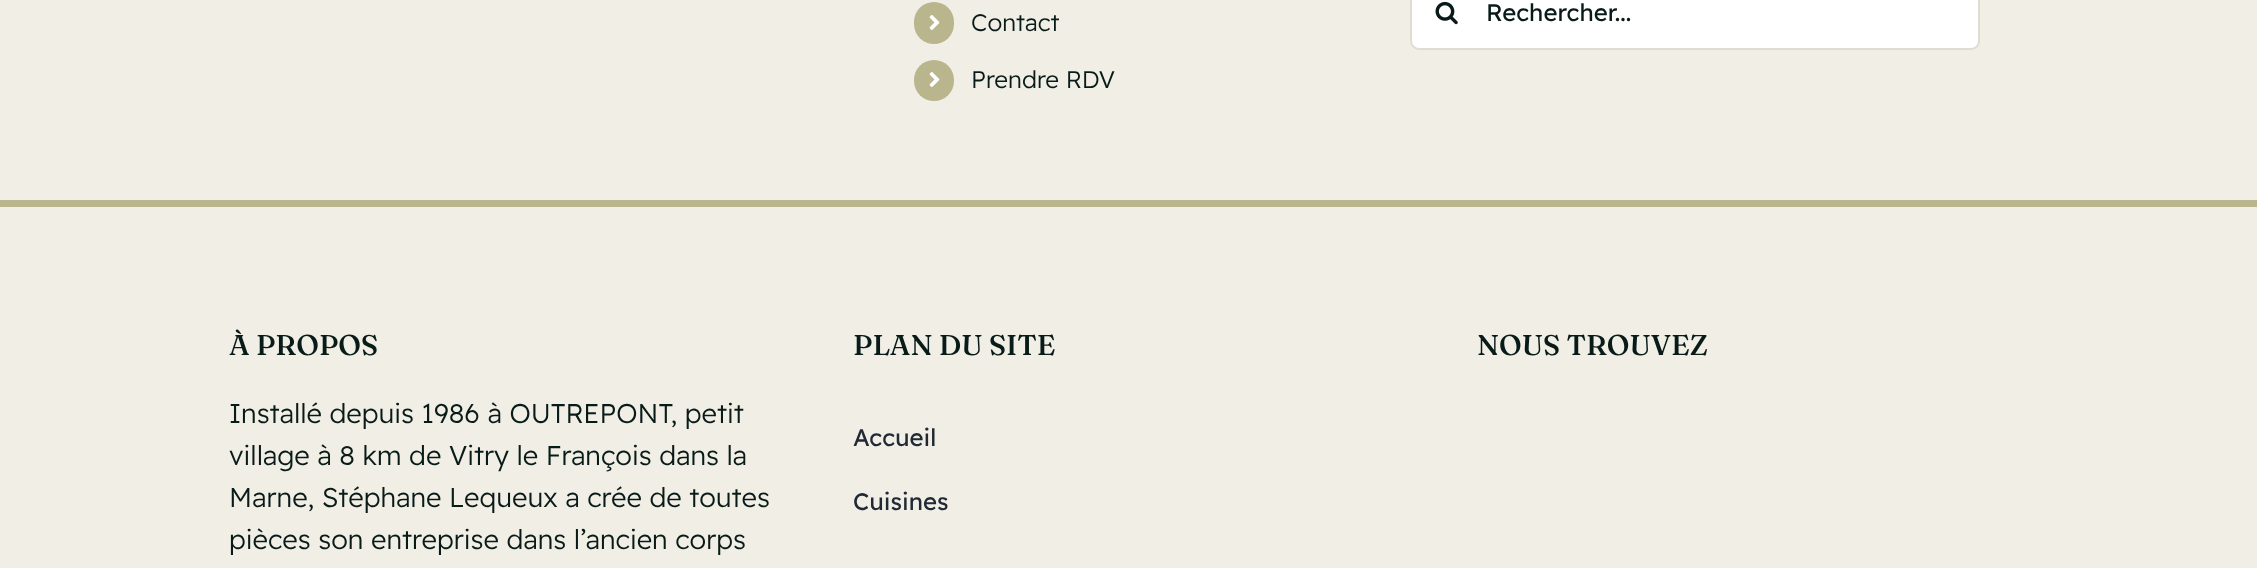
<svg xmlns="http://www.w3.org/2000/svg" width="2257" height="568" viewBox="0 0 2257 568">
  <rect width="100%" height="100%" fill="#f0eee5"/>
  <rect x="914" y="2" width="40" height="42" rx="20" fill="#b9b58d"/>
  <image x="929" y="15" width="11" height="15" href="img/1.png"/>
  <rect x="914" y="60" width="40" height="41" rx="20" fill="#b9b58d"/>
  <image x="929" y="72" width="11" height="15" href="img/1.png"/>
  <rect x="1411" y="-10" width="568" height="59" rx="8" fill="#fff" stroke="#dfddd2" stroke-width="2"/>
  <image x="1435" y="1" width="23" height="24" href="img/2.png"/>
  <path d="M0 200h2257v7H0z" fill="#b9b58d"/>
  <g font-family="Readex Pro" font-size="24" font-weight="300" fill="#091b18">
    <text x="971" y="31">Contact</text>
    <text x="971" y="88">Prendre RDV</text>
  </g>
  <text x="1486" y="21" font-family="Readex Pro" font-size="24" fill="#091b18">Rechercher...</text>
  <text x="229" y="355" font-family="Fraunces" font-size="28.5" font-weight="500" fill="#091b18">À PROPOS</text>
  <g font-family="Readex Pro" font-size="27" font-weight="300" fill="#091b18">
    <text x="229" y="423">Installé depuis 1986 à OUTREPONT, petit</text>
    <text x="229" y="465">village à 8 km de Vitry le François dans la</text>
    <text x="229" y="507">Marne, Stéphane Lequeux a crée de toutes</text>
    <text x="229" y="549">pièces son entreprise dans l’ancien corps</text>
  </g>
  <text x="853" y="355" font-family="Fraunces" font-size="28.5" font-weight="500" fill="#091b18">PLAN DU SITE</text>
  <g font-family="Readex Pro" font-size="24" fill="#212934">
    <text x="853" y="446">Accueil</text>
    <text x="853" y="510">Cuisines</text>
  </g>
  <text x="1477" y="355" font-family="Fraunces" font-size="28.5" font-weight="500" fill="#091b18">NOUS TROUVEZ</text>
</svg>
